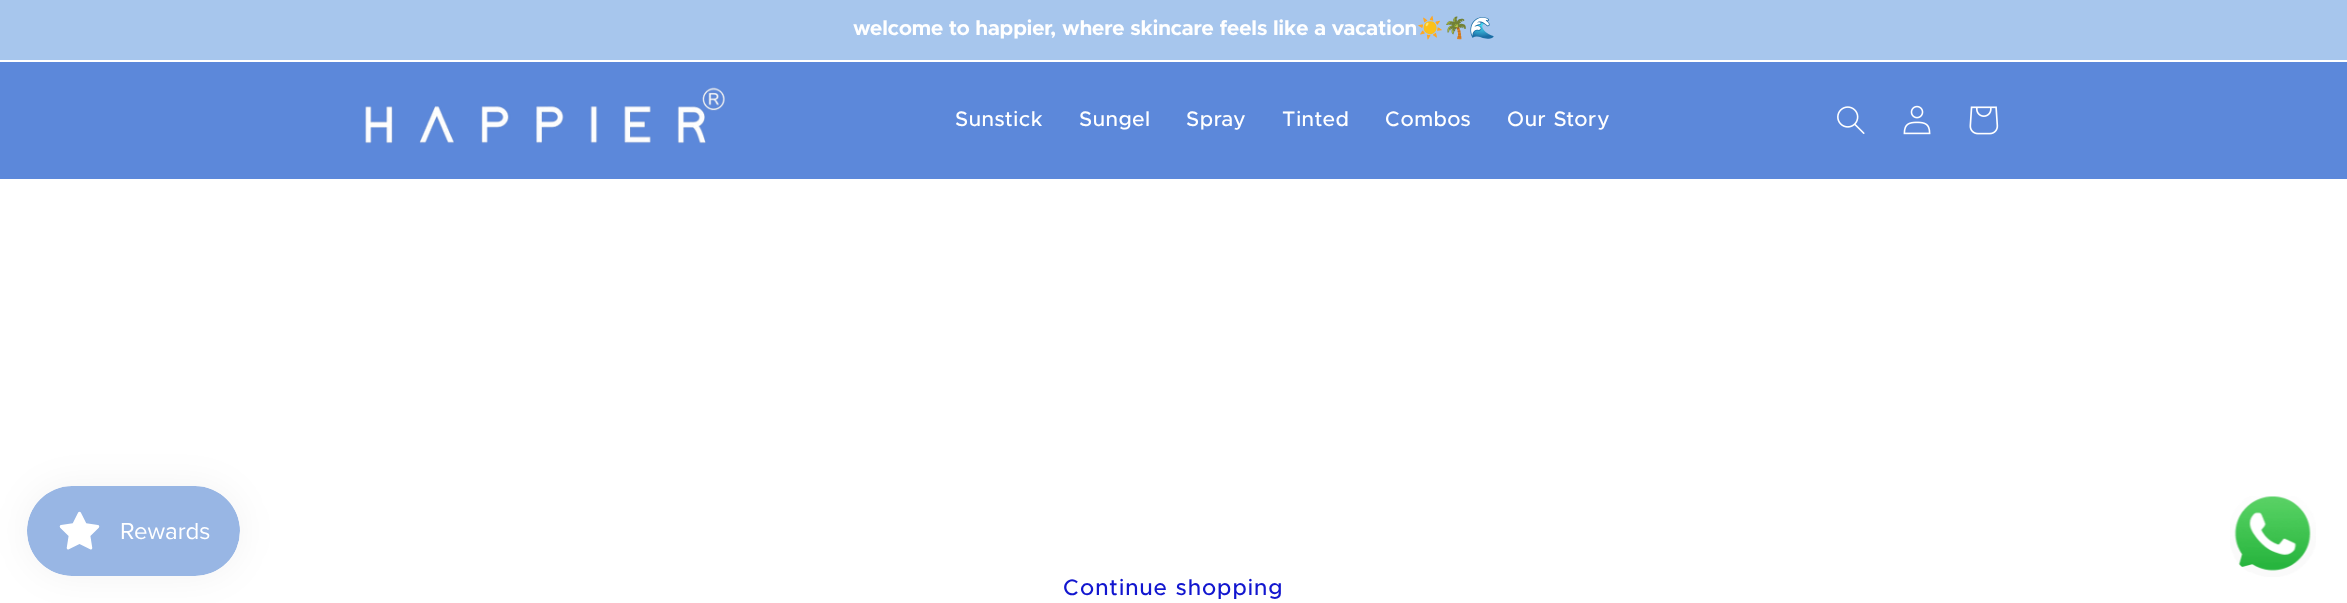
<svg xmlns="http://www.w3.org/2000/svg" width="2347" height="603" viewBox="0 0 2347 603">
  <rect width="100%" height="100%" fill="#fff"/>
  <path d="M0 0h2347v60H0z" fill="#a7c6ed"/>
  <path d="M0 62h2347v117H0z" fill="#5c88da"/>
  <image x="365" y="87" width="360" height="57" href="img/1.png"/>
  <image x="1837" y="106" width="28" height="28" href="img/2.png"/>
  <image x="1903" y="105" width="28" height="30" href="img/3.png"/>
  <image x="1969" y="106" width="30" height="29" href="img/4.png"/>
  <rect x="27" y="486" width="213" height="90" rx="45" fill="#0000000d" filter="blur(19px)"/>
  <image x="27" y="486" width="213" height="90" href="img/5.png"/>
  <image x="2230" y="496" width="86" height="81" href="img/6.png"/>
  <text x="853" y="35" font-family="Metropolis" font-size="21" font-weight="bold" fill="#fff">welcome to happier, where skincare feels like a vacation</text>
  <text x="1417" y="35" font-family="Noto Color Emoji" font-size="21" font-weight="bold" fill="#fff">☀️🌴🌊</text>
  <g font-family="Metropolis" font-size="21" font-weight="500" letter-spacing="1" fill="#fff">
    <text x="955" y="126">Sunstick</text>
    <text x="1079" y="126">Sungel</text>
    <text x="1186" y="126">Spray</text>
    <text x="1282" y="126">Tinted</text>
    <text x="1385" y="126">Combos</text>
    <text x="1507" y="126">Our Story</text>
  </g>
  <text x="1063" y="595" font-family="Metropolis" font-size="22.5" font-weight="500" letter-spacing="1.5" fill="#1216cf">Continue shopping</text>
</svg>
